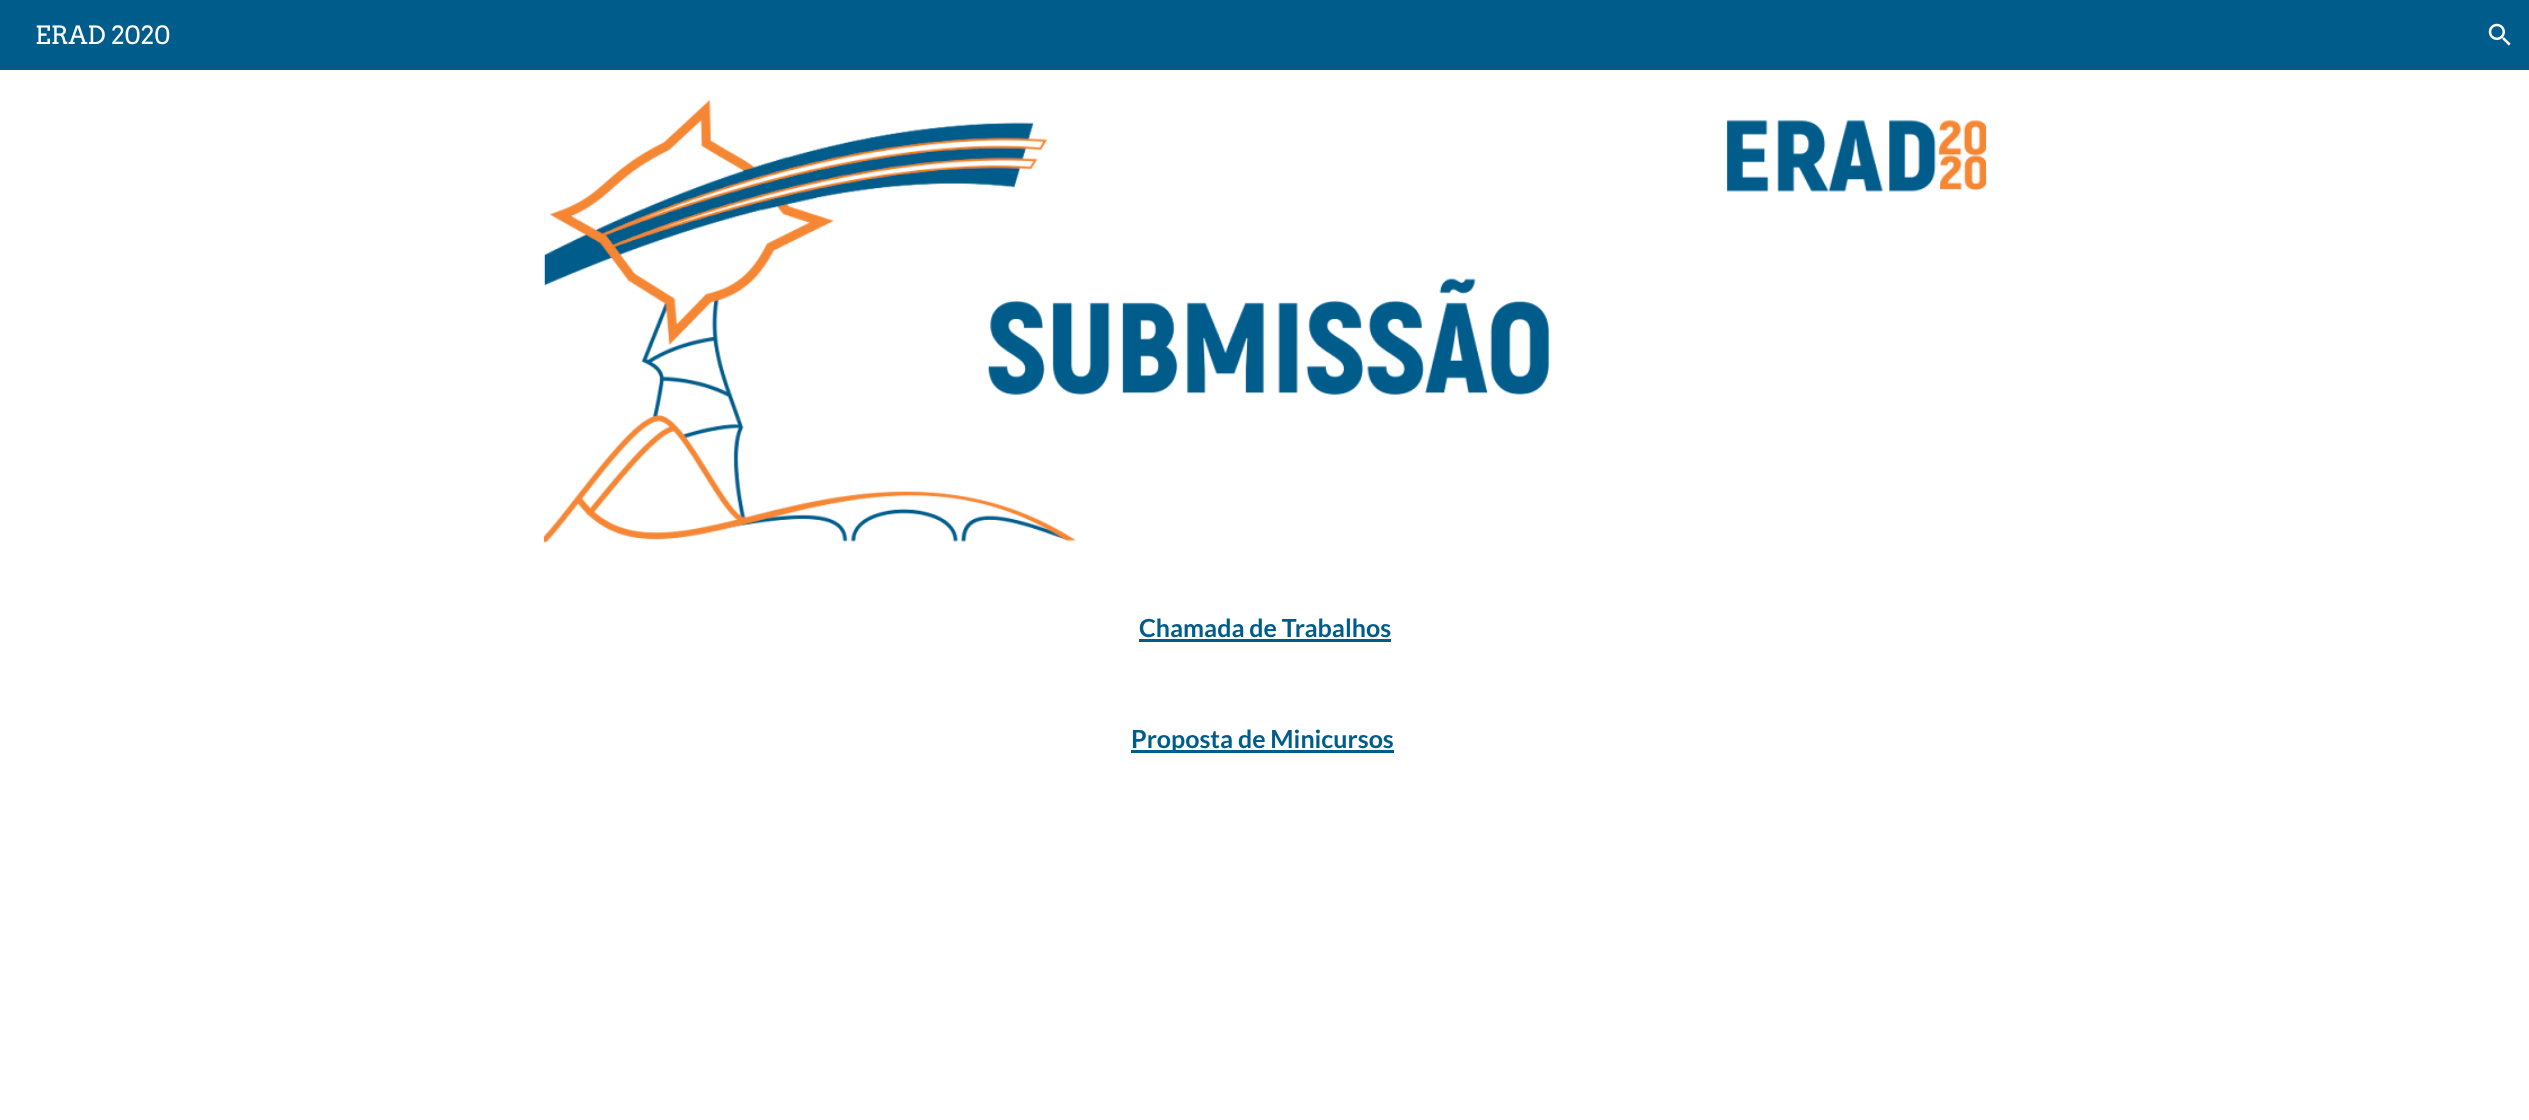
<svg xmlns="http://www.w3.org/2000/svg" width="2529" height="1120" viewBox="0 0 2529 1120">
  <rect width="100%" height="100%" fill="#fff"/>
  <path d="M0 0h2529v70H0z" fill="#005c8b"/>
  <image x="2488" y="23" width="23" height="23" href="img/1.png"/>
  <image x="543" y="100" width="1444" height="443" href="img/2.png"/>
  <path d="M1139 639h252v3H1139z" fill="#005c8b"/>
  <path d="M1131 750h263v3H1131z" fill="#005c8b"/>
  <text x="35" y="44" font-family="Arvo" font-size="25" fill="#fff">ERAD 2020</text>
  <g font-family="Lato" font-size="25" font-weight="bold" fill="#005c8b">
    <text x="1139" y="637">Chamada de Trabalhos</text>
    <text x="1131" y="748">Proposta de Minicursos</text>
  </g>
</svg>
